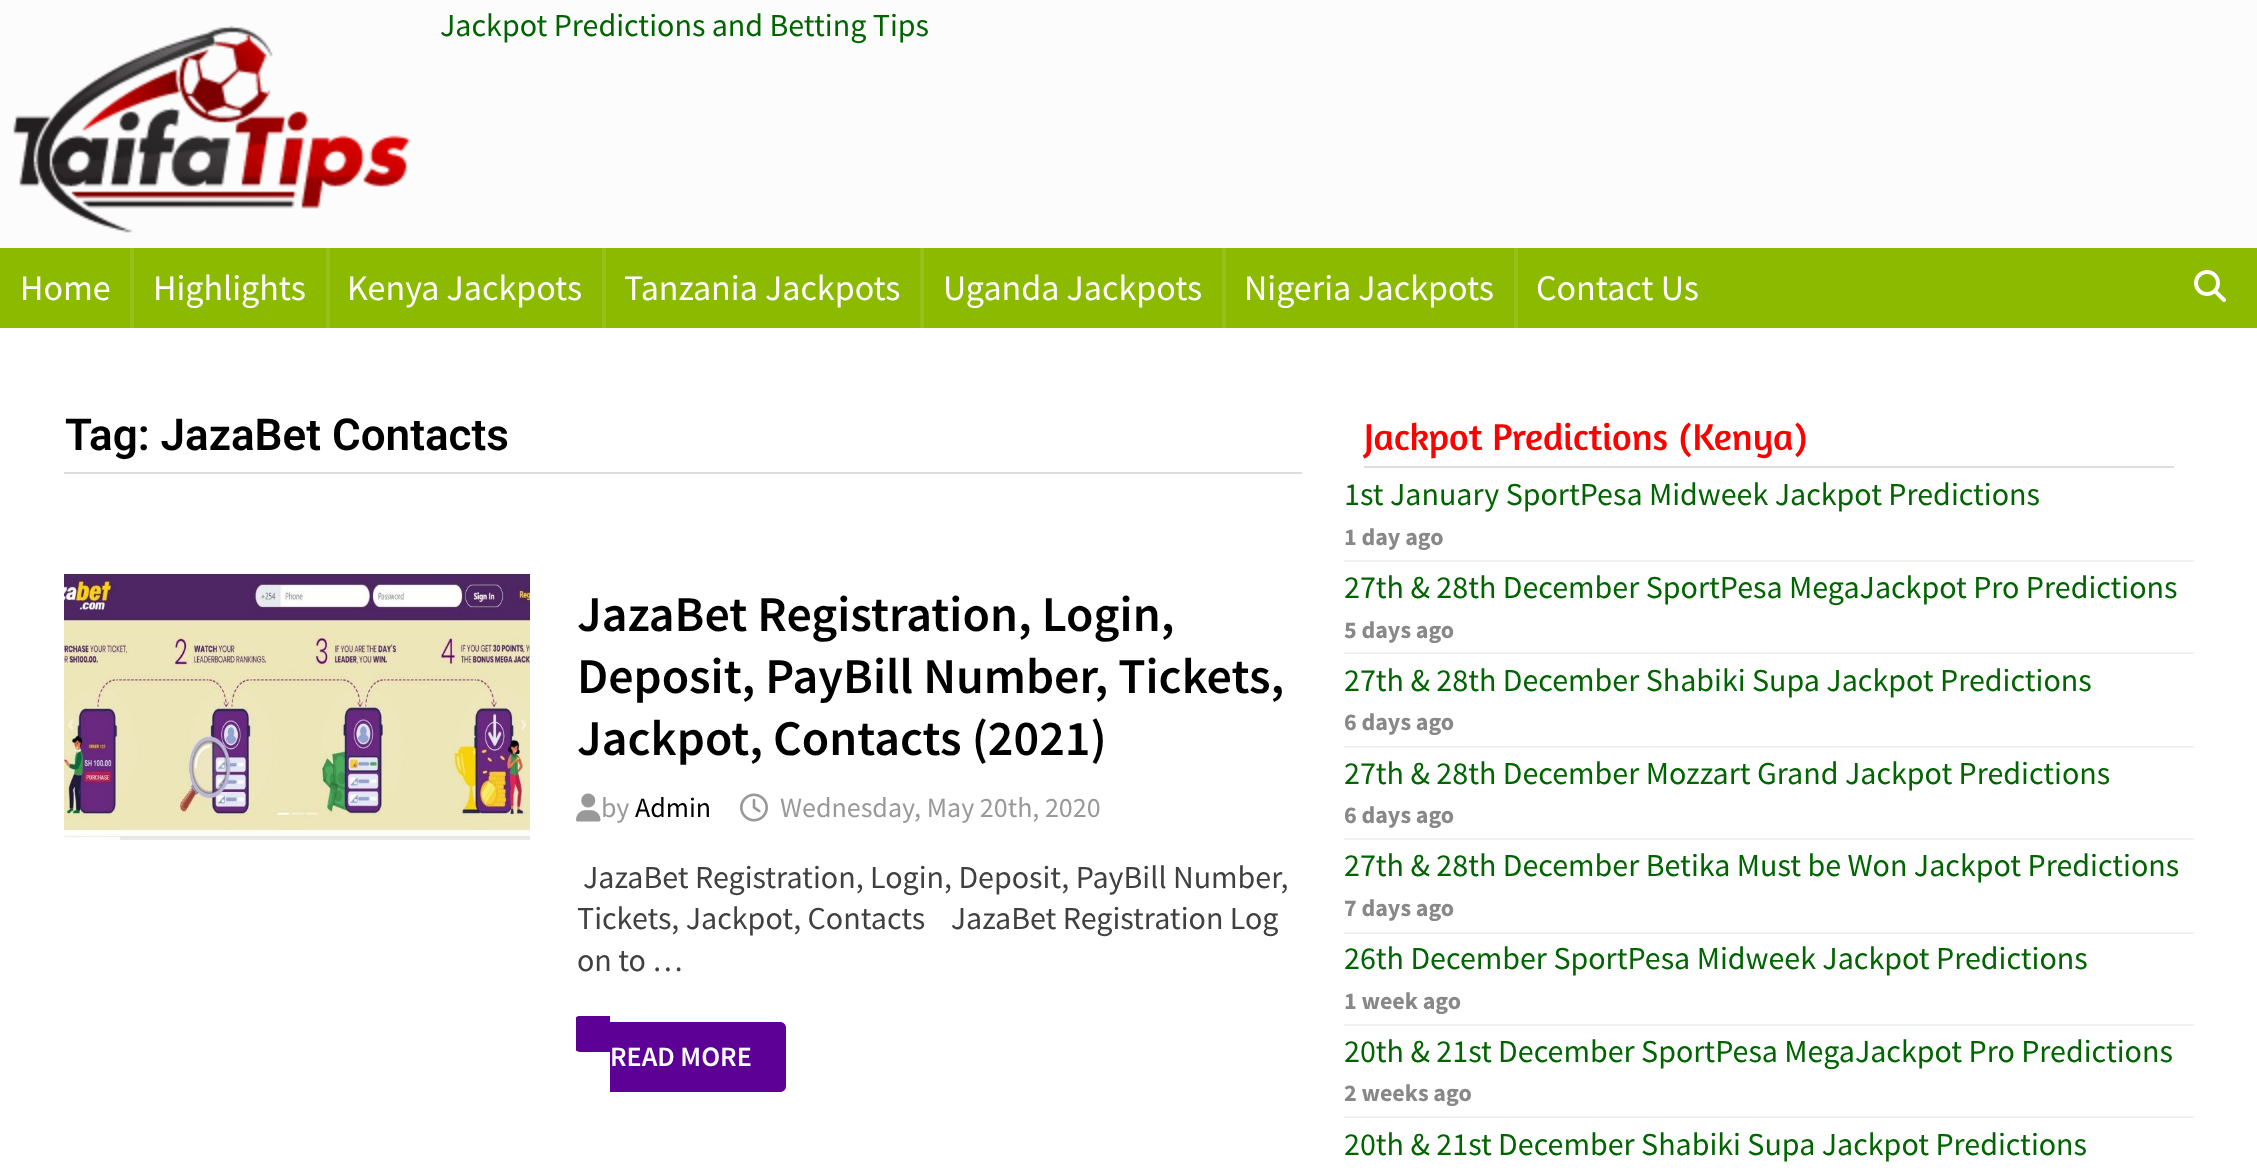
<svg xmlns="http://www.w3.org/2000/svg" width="2257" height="1171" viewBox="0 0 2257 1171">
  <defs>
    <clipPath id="clip1"><path d="M576 574h726v552H576z"/></clipPath>
  </defs>
  <rect width="100%" height="100%" fill="#fff"/>
  <path d="M0 0h2257v248H0z" fill="#fcfcfc"/>
  <image x="13" y="25" width="398" height="208" href="img/1.png"/>
  <path d="M0 248h2257v80H0z" fill="#8bba00"/>
  <path d="M130 248h4v80H130z" fill="#97c11a"/>
  <path d="M326 248h4v80H326z" fill="#97c11a"/>
  <path d="M602 248h4v80H602z" fill="#97c11a"/>
  <path d="M920 248h4v80H920z" fill="#97c11a"/>
  <path d="M1222 248h4v80H1222z" fill="#97c11a"/>
  <path d="M1514 248h4v80H1514z" fill="#97c11a"/>
  <image x="2194" y="270" width="32" height="32" href="img/2.png"/>
  <path d="M64 472h1238v2H64z" fill="#ddd"/>
  <image x="64" y="574" width="466" height="266" href="img/3.png"/>
  <image x="576" y="793" width="25" height="29" href="img/4.png"/>
  <image x="740" y="793" width="28" height="29" href="img/5.png"/>
  <g clip-path="url(#clip1)">
    <path d="M580 1016H610V1052H580C576.5 1052 574 1049.5 574 1046V1022C574 1018.5 576.5 1016 580 1016Z" fill="#5c0096"/>
  </g>
  <path d="M610 1022H780C783.5 1022 786 1024.5 786 1028V1086C786 1089.5 783.5 1092 780 1092H610Z" fill="#5c0096"/>
  <path d="M1364 466h810v2H1364z" fill="#ddd"/>
  <path d="M1344 560h850v2H1344z" fill="#f0f0f0"/>
  <path d="M1344 652h850v2H1344z" fill="#f0f0f0"/>
  <path d="M1344 746h850v2H1344z" fill="#f0f0f0"/>
  <path d="M1344 838h850v2H1344z" fill="#f0f0f0"/>
  <path d="M1344 932h850v2H1344z" fill="#f0f0f0"/>
  <path d="M1344 1024h850v2H1344z" fill="#f0f0f0"/>
  <path d="M1344 1116h850v2H1344z" fill="#f0f0f0"/>
  <text x="440" y="36" font-family="Source Sans Pro" font-size="32" fill="#006400">Jackpot Predictions and Betting Tips</text>
  <g font-family="Source Sans Pro" font-size="36" fill="#fff">
    <text x="20" y="300">Home</text>
    <text x="153" y="300">Highlights</text>
    <text x="347" y="300">Kenya Jackpots</text>
    <text x="624" y="300">Tanzania Jackpots</text>
    <text x="943" y="300">Uganda Jackpots</text>
    <text x="1244" y="300">Nigeria Jackpots</text>
    <text x="1536" y="300">Contact Us</text>
  </g>
  <text x="65" y="450" font-family="Roboto" font-size="44" font-weight="600" fill="#000">Tag: JazaBet Contacts</text>
  <g font-family="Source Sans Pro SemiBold" font-size="50" font-weight="600" fill="#000">
    <text x="577" y="631">JazaBet Registration, Login,</text>
    <text x="577" y="693">Deposit, PayBill Number, Tickets,</text>
    <text x="577" y="755">Jackpot, Contacts (2021)</text>
  </g>
  <text x="601" y="817" font-family="Source Sans Pro" font-size="28" fill="#999">by</text>
  <text x="635" y="817" font-family="Source Sans Pro" font-size="28" fill="#000">Admin</text>
  <text x="780" y="817" font-family="Source Sans Pro" font-size="28" fill="#999">Wednesday, May 20th, 2020</text>
  <g font-family="Source Sans Pro" font-size="32" fill="#404040">
    <text x="583" y="888">JazaBet Registration, Login, Deposit, PayBill Number,</text>
    <text x="577" y="929" xml:space="preserve">Tickets, Jackpot, Contacts    JazaBet Registration Log</text>
    <text x="577" y="971">on to …</text>
  </g>
  <text x="610" y="1066" font-family="Source Sans Pro SemiBold" font-size="28" font-weight="600" fill="#fff">READ MORE</text>
  <text x="1364" y="450" font-family="Amaranth" font-size="38" fill="#f00">Jackpot Predictions (Kenya)</text>
  <text x="1344" y="505" font-family="Source Sans Pro" font-size="32" fill="#006400">1st January SportPesa Midweek Jackpot Predictions</text>
  <text x="1344" y="545" font-family="Source Sans Pro" font-size="24" font-weight="bold" fill="#888">1 day ago</text>
  <text x="1344" y="598" font-family="Source Sans Pro" font-size="32" fill="#006400">27th &amp; 28th December SportPesa MegaJackpot Pro Predictions</text>
  <text x="1344" y="638" font-family="Source Sans Pro" font-size="24" font-weight="bold" fill="#888">5 days ago</text>
  <text x="1344" y="691" font-family="Source Sans Pro" font-size="32" fill="#006400">27th &amp; 28th December Shabiki Supa Jackpot Predictions</text>
  <text x="1344" y="730" font-family="Source Sans Pro" font-size="24" font-weight="bold" fill="#888">6 days ago</text>
  <text x="1344" y="784" font-family="Source Sans Pro" font-size="32" fill="#006400">27th &amp; 28th December Mozzart Grand Jackpot Predictions</text>
  <text x="1344" y="823" font-family="Source Sans Pro" font-size="24" font-weight="bold" fill="#888">6 days ago</text>
  <text x="1344" y="876" font-family="Source Sans Pro" font-size="32" fill="#006400">27th &amp; 28th December Betika Must be Won Jackpot Predictions</text>
  <text x="1344" y="916" font-family="Source Sans Pro" font-size="24" font-weight="bold" fill="#888">7 days ago</text>
  <text x="1344" y="969" font-family="Source Sans Pro" font-size="32" fill="#006400">26th December SportPesa Midweek Jackpot Predictions</text>
  <text x="1344" y="1009" font-family="Source Sans Pro" font-size="24" font-weight="bold" fill="#888">1 week ago</text>
  <text x="1344" y="1062" font-family="Source Sans Pro" font-size="32" fill="#006400">20th &amp; 21st December SportPesa MegaJackpot Pro Predictions</text>
  <text x="1344" y="1101" font-family="Source Sans Pro" font-size="24" font-weight="bold" fill="#888">2 weeks ago</text>
  <text x="1344" y="1155" font-family="Source Sans Pro" font-size="32" fill="#006400">20th &amp; 21st December Shabiki Supa Jackpot Predictions</text>
</svg>
